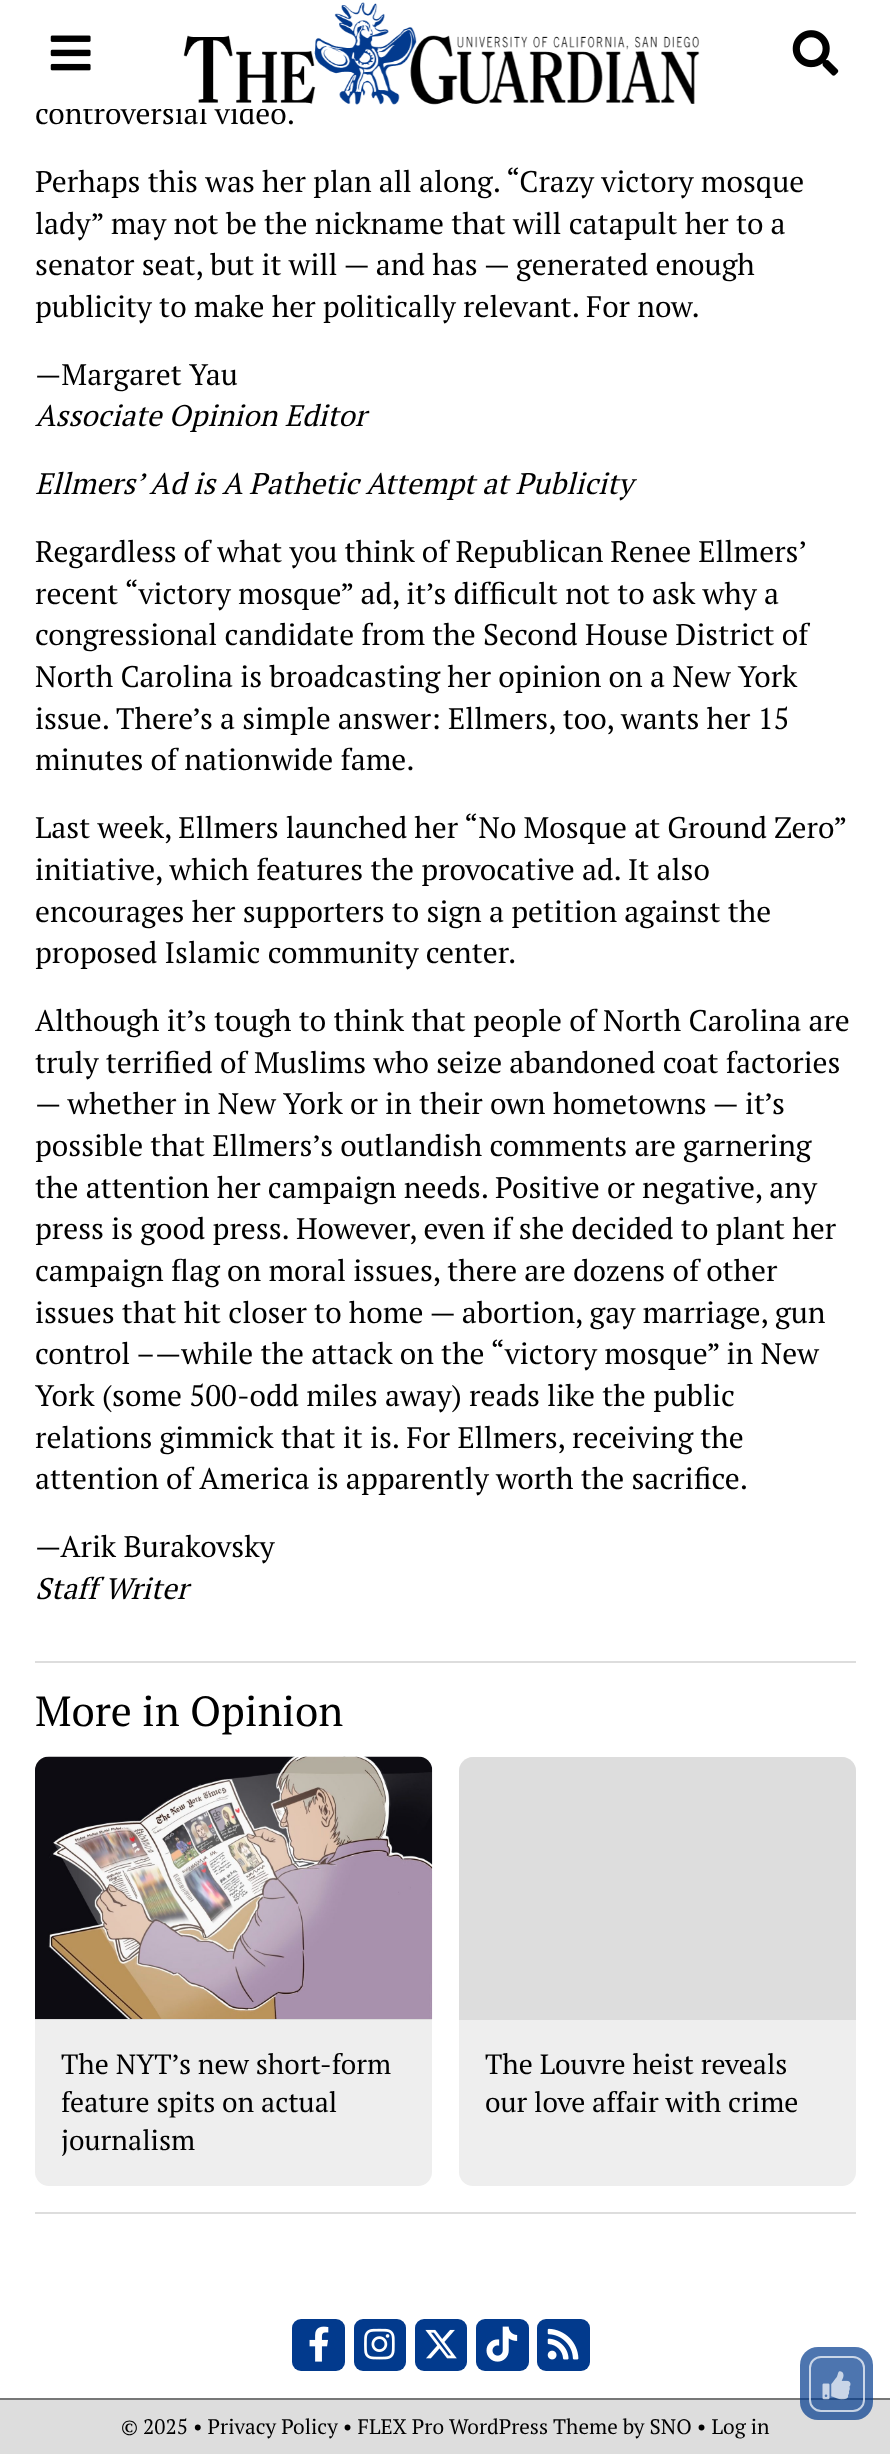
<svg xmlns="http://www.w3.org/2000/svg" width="890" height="2454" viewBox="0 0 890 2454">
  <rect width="100%" height="100%" fill="#fff"/>
  <image x="50" y="35" width="41" height="36" href="img/1.png"/>
  <image x="792" y="30" width="47" height="46" href="img/3.png"/>
  <path d="M35 1661h821v2H35z" fill="#ddd"/>
  <path d="M35 2212h821v2H35z" fill="#ddd"/>
  <rect x="35" y="1757" width="397" height="429" rx="14" fill="#eee"/>
  <path d="M49 1757H418C425.5 1757 432 1763.5 432 1771V2020H35V1771C35 1763.5 41.5 1757 49 1757Z" fill="#ddd"/>
  <image x="35" y="1756" width="398" height="263" href="img/4.png"/>
  <rect x="459" y="1757" width="397" height="429" rx="14" fill="#eee"/>
  <path d="M473 1757H842C849.5 1757 856 1763.5 856 1771V2020H459V1771C459 1763.5 465.5 1757 473 1757Z" fill="#ddd"/>
  <path d="M0 2400h890v54H0z" fill="#ddd"/>
  <path d="M0 2398h890v2H0z" fill="#777"/>
  <rect x="800" y="2347" width="73" height="73" rx="18" fill="#023a8db3"/>
  <rect x="810" y="2357" width="54" height="54" rx="11" fill="none" stroke="#ffffffb3" stroke-width="2"/>
  <image x="822" y="2371" width="29" height="29" href="img/5.png"/>
  <rect x="292" y="2319" width="53" height="52" rx="9" fill="#023a8d"/>
  <image x="309" y="2326" width="20" height="36" href="img/6.png"/>
  <rect x="354" y="2319" width="52" height="52" rx="9" fill="#023a8d"/>
  <image x="364" y="2328" width="31" height="32" href="img/7.png"/>
  <rect x="415" y="2319" width="52" height="52" rx="9" fill="#023a8d"/>
  <image x="425" y="2329" width="32" height="30" href="img/8.png"/>
  <rect x="476" y="2319" width="53" height="52" rx="9" fill="#023a8d"/>
  <image x="486" y="2326" width="32" height="36" href="img/9.png"/>
  <rect x="537" y="2319" width="53" height="52" rx="9" fill="#023a8d"/>
  <image x="547" y="2328" width="32" height="32" href="img/10.png"/>
  <text x="35" y="124" font-family="PT Serif" font-size="29.75" fill="#000">controversial video.</text>
  <path d="M41 101h240v8H41z" fill="#fff"/>
  <image x="183" y="2" width="517" height="103" href="img/2.png"/>
  <g font-family="PT Serif" font-size="29.75" fill="#000">
    <text x="35" y="192">Perhaps this was her plan all along. “Crazy victory mosque</text>
    <text x="35" y="234">lady” may not be the nickname that will catapult her to a</text>
    <text x="35" y="275">senator seat, but it will — and has — generated enough</text>
    <text x="35" y="317">publicity to make her politically relevant. For now.</text>
    <text x="35" y="385">—Margaret Yau</text>
  </g>
  <g font-family="PT Serif" font-size="29.75" font-style="italic" fill="#000">
    <text x="35" y="426">Associate Opinion Editor</text>
    <text x="35" y="494">Ellmers’ Ad is A Pathetic Attempt at Publicity</text>
  </g>
  <g font-family="PT Serif" font-size="29.75" fill="#000">
    <text x="35" y="562" word-spacing="-0.25">Regardless of what you think of Republican Renee Ellmers’</text>
    <text x="35" y="604">recent “victory mosque” ad, it’s difficult not to ask why a</text>
    <text x="35" y="645">congressional candidate from the Second House District of</text>
    <text x="35" y="687">North Carolina is broadcasting her opinion on a New York</text>
    <text x="35" y="729">issue. There’s a simple answer: Ellmers, too, wants her 15</text>
    <text x="35" y="770">minutes of nationwide fame.</text>
    <text x="35" y="838" word-spacing="-0.1">Last week, Ellmers launched her “No Mosque at Ground Zero”</text>
    <text x="35" y="880">initiative, which features the provocative ad. It also</text>
    <text x="35" y="922">encourages her supporters to sign a petition against the</text>
    <text x="35" y="963">proposed Islamic community center.</text>
    <text x="35" y="1031">Although it’s tough to think that people of North Carolina are</text>
    <text x="35" y="1073">truly terrified of Muslims who seize abandoned coat factories</text>
    <text x="35" y="1114">— whether in New York or in their own hometowns — it’s</text>
    <text x="35" y="1156">possible that Ellmers’s outlandish comments are garnering</text>
    <text x="35" y="1198">the attention her campaign needs. Positive or negative, any</text>
    <text x="35" y="1239">press is good press. However, even if she decided to plant her</text>
    <text x="35" y="1281">campaign flag on moral issues, there are dozens of other</text>
    <text x="35" y="1323">issues that hit closer to home — abortion, gay marriage, gun</text>
    <text x="35" y="1364">control –—while the attack on the “victory mosque” in New</text>
    <text x="35" y="1406">York (some 500-odd miles away) reads like the public</text>
    <text x="35" y="1448">relations gimmick that it is. For Ellmers, receiving the</text>
    <text x="35" y="1489">attention of America is apparently worth the sacrifice.</text>
    <text x="35" y="1557">—Arik Burakovsky</text>
  </g>
  <text x="35" y="1599" font-family="PT Serif" font-size="29.75" font-style="italic" fill="#000">Staff Writer</text>
  <text x="35" y="1726" font-family="PT Serif" font-size="42" fill="#000">More in Opinion</text>
  <g font-family="PT Serif" font-size="28" fill="#000">
    <text x="61" y="2074">The NYT’s new short-form</text>
    <text x="61" y="2112">feature spits on actual</text>
    <text x="61" y="2150">journalism</text>
    <text x="485" y="2074">The Louvre heist reveals</text>
    <text x="485" y="2112">our love affair with crime</text>
  </g>
  <text x="121" y="2434" font-family="PT Serif" font-size="21" fill="#000">© 2025 • Privacy Policy • FLEX Pro WordPress Theme by SNO • Log in</text>
</svg>
